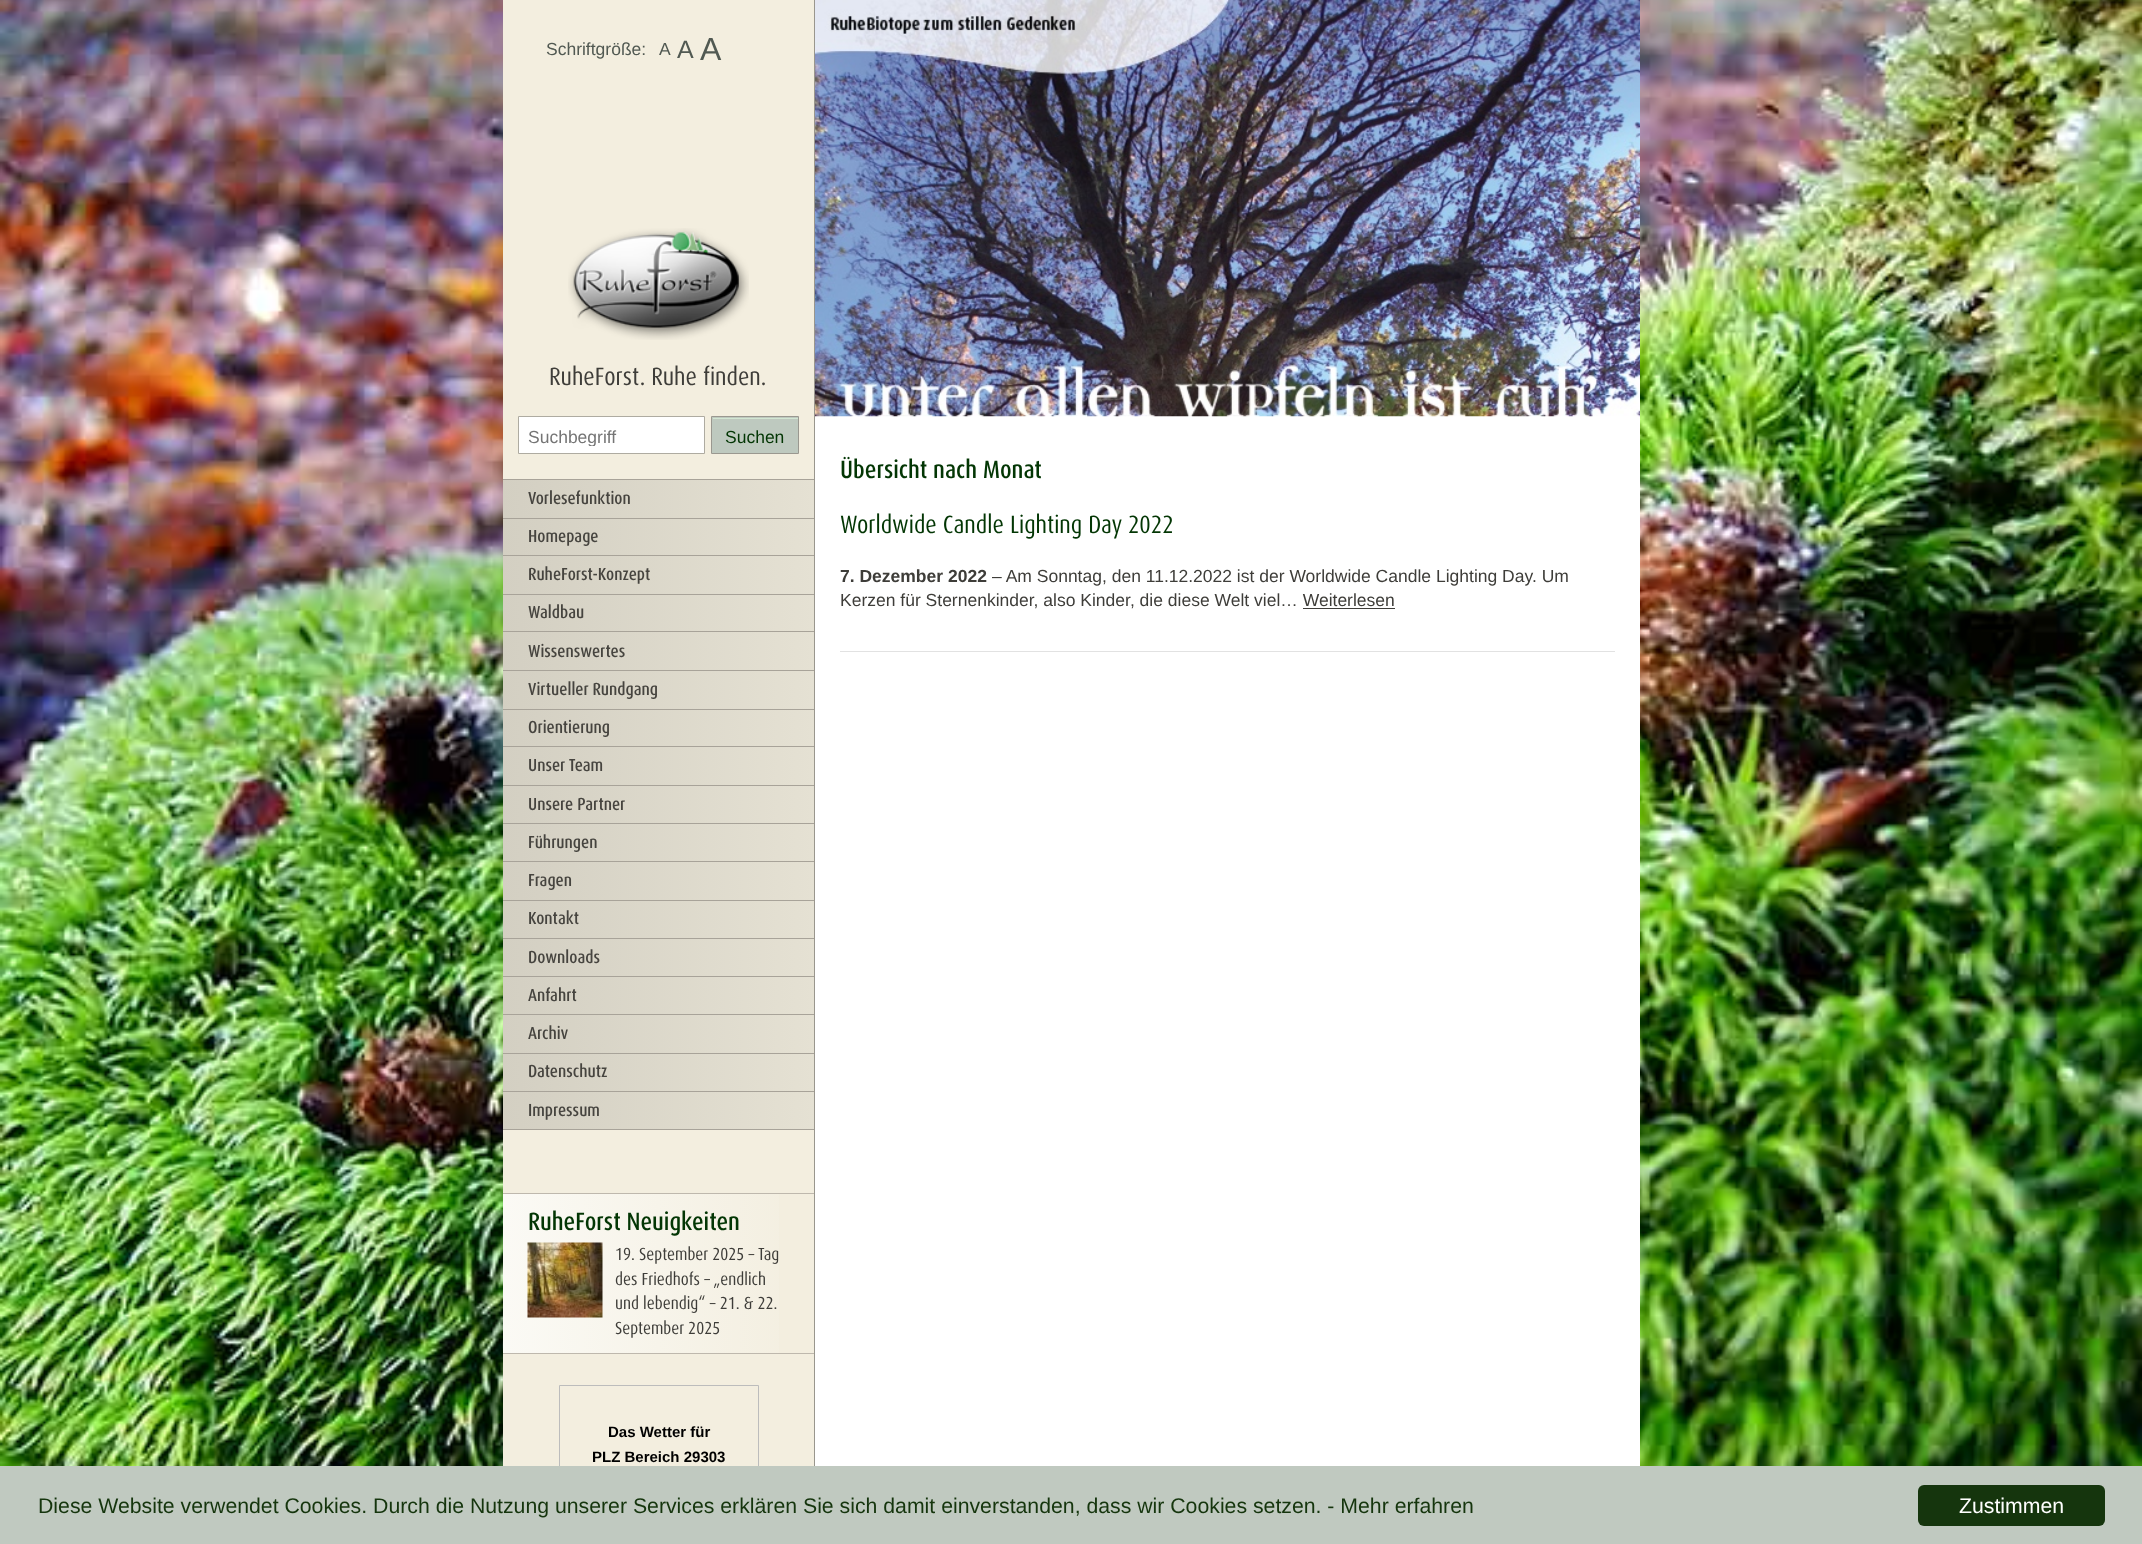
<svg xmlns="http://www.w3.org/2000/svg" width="2142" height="1544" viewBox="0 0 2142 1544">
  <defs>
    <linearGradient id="g1" gradientUnits="userSpaceOnUse" x1="503" y1="804" x2="814" y2="804"><stop offset="0" stop-color="#d3cfc2"/><stop offset="1" stop-color="#e5e1d3"/></linearGradient>
    <linearGradient id="g2" gradientUnits="userSpaceOnUse" x1="503" y1="1273" x2="814" y2="1273"><stop offset="0" stop-color="#fbfaf5"/><stop offset="1" stop-color="#f3eedf"/></linearGradient>
    <clipPath id="clip1"><path d="M528 426h167v20H528z"/></clipPath>
  </defs>
  <rect width="100%" height="100%" fill="#fff"/>
  <image x="0" y="0" width="2142" height="1466" href="img/1.png"/>
  <path d="M503 0h311v1466H503z" fill="#f3eedf"/>
  <path d="M814 0h1v1466H814z" fill="#99968d"/>
  <image x="568" y="228" width="181" height="112" href="img/2.png"/>
  <path d="M518.5 416.5h186v37H518.5z" fill="#fff" stroke="#aeaba1"/>
  <path d="M712 417h86v36H712z" fill="#bec9bf"/>
  <path d="M713 418h85v1H713z" fill="#d2e6d2"/>
  <path d="M711.5 416.5h87v37H711.5z" fill="none" stroke="#9a9890"/>
  <path d="M503 480h311v649H503z" fill="url(#g1)"/>
  <path d="M503 1129h311v1H503z" fill="#a8a399"/>
  <path d="M503 479h311v1H503z" fill="#a8a399"/>
  <path d="M503 518h311v1H503z" fill="#a8a399"/>
  <path d="M503 555h311v1H503z" fill="#a8a399"/>
  <path d="M503 594h311v1H503z" fill="#a8a399"/>
  <path d="M503 631h311v1H503z" fill="#a8a399"/>
  <path d="M503 670h311v1H503z" fill="#a8a399"/>
  <path d="M503 709h311v1H503z" fill="#a8a399"/>
  <path d="M503 746h311v1H503z" fill="#a8a399"/>
  <path d="M503 785h311v1H503z" fill="#a8a399"/>
  <path d="M503 823h311v1H503z" fill="#a8a399"/>
  <path d="M503 861h311v1H503z" fill="#a8a399"/>
  <path d="M503 900h311v1H503z" fill="#a8a399"/>
  <path d="M503 938h311v1H503z" fill="#a8a399"/>
  <path d="M503 976h311v1H503z" fill="#a8a399"/>
  <path d="M503 1014h311v1H503z" fill="#a8a399"/>
  <path d="M503 1053h311v1H503z" fill="#a8a399"/>
  <path d="M503 1091h311v1H503z" fill="#a8a399"/>
  <path d="M503 1194h276v159H503z" fill="url(#g2)"/>
  <path d="M503 1193h311v1H503z" fill="#beb8ad"/>
  <path d="M503 1353h311v1H503z" fill="#beb8ad"/>
  <image x="527" y="1242" width="76" height="76" href="img/3.png"/>
  <path d="M559.5 1385.5h199v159H559.5z" fill="none" stroke="#bcbcbc"/>
  <path d="M815 416h825v1050H815z" fill="#fff"/>
  <image x="815" y="0" width="825" height="417" href="img/4.png"/>
  <path d="M1303 608h92v1H1303z" fill="#3e3d39"/>
  <path d="M840 651h775v1H840z" fill="#e2e2e2"/>
  <path d="M0 1466h2142v78H0z" fill="#c0c9c0"/>
  <rect x="1918" y="1485" width="187" height="41" rx="6" fill="#15350d"/>
  <g font-family="Liberation Sans" font-size="17.5" fill="#515952">
    <text x="546" y="55">Schriftgröße:</text>
    <text x="659" y="55">A</text>
  </g>
  <text x="677" y="58" font-family="Liberation Sans" font-size="25" fill="#515952">A</text>
  <text x="700" y="60" font-family="Liberation Sans" font-size="32" fill="#515952">A</text>
  <text x="549" y="385" font-family="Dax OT" font-size="25" fill="#3e3d39">RuheForst. Ruhe finden.</text>
  <g clip-path="url(#clip1)">
    <text x="528" y="443" font-family="Liberation Sans" font-size="17.5" fill="#757575">Suchbegriff</text>
  </g>
  <text x="725" y="443" font-family="Liberation Sans" font-size="17.5" fill="#033604">Suchen</text>
  <g font-family="Dax OT" font-size="17.5" font-weight="500" fill="#46443f">
    <text x="528" y="504">Vorlesefunktion</text>
    <text x="528" y="542">Homepage</text>
    <text x="528" y="580">RuheForst-Konzept</text>
    <text x="528" y="618">Waldbau</text>
    <text x="528" y="657">Wissenswertes</text>
    <text x="528" y="695">Virtueller Rundgang</text>
    <text x="528" y="733">Orientierung</text>
    <text x="528" y="771">Unser Team</text>
    <text x="528" y="810">Unsere Partner</text>
    <text x="528" y="848">Führungen</text>
    <text x="528" y="886">Fragen</text>
    <text x="528" y="924">Kontakt</text>
    <text x="528" y="963">Downloads</text>
    <text x="528" y="1001">Anfahrt</text>
    <text x="528" y="1039">Archiv</text>
    <text x="528" y="1077">Datenschutz</text>
    <text x="528" y="1116">Impressum</text>
  </g>
  <text x="528" y="1230" font-family="Dax OT" font-size="25" font-weight="500" fill="#033604">RuheForst Neuigkeiten</text>
  <g font-family="Dax OT" font-size="17.5" fill="#3e3d39">
    <text x="615" y="1260">19. September 2025 – Tag</text>
    <text x="615" y="1285">des Friedhofs – „endlich</text>
    <text x="615" y="1309">und lebendig“ – 21. &amp; 22.</text>
    <text x="615" y="1334">September 2025</text>
  </g>
  <g font-family="Liberation Sans" font-size="15" font-weight="bold" fill="#000">
    <text x="608" y="1437">Das Wetter für</text>
    <text x="592" y="1462">PLZ Bereich 29303</text>
  </g>
  <text x="840" y="478" font-family="Dax OT" font-size="25" font-weight="500" fill="#033604">Übersicht nach Monat</text>
  <text x="840" y="533" font-family="Dax OT" font-size="25" fill="#033604">Worldwide Candle Lighting Day 2022</text>
  <text x="840" y="582" font-family="Liberation Sans" font-size="17.5" font-weight="bold" fill="#3e3d39">7. Dezember 2022</text>
  <g font-family="Liberation Sans" font-size="17.5" fill="#3e3d39">
    <text x="992" y="582">– Am Sonntag, den 11.12.2022 ist der Worldwide Candle Lighting Day. Um</text>
    <text x="840" y="606">Kerzen für Sternenkinder, also Kinder, die diese Welt viel… Weiterlesen</text>
  </g>
  <text x="38" y="1513" font-family="Liberation Sans" font-size="21.25" fill="#15350d">Diese Website verwendet Cookies. Durch die Nutzung unserer Services erklären Sie sich damit einverstanden, dass wir Cookies setzen. - Mehr erfahren</text>
  <text x="1959" y="1513" font-family="Liberation Sans" font-size="21.25" fill="#fff">Zustimmen</text>
</svg>
